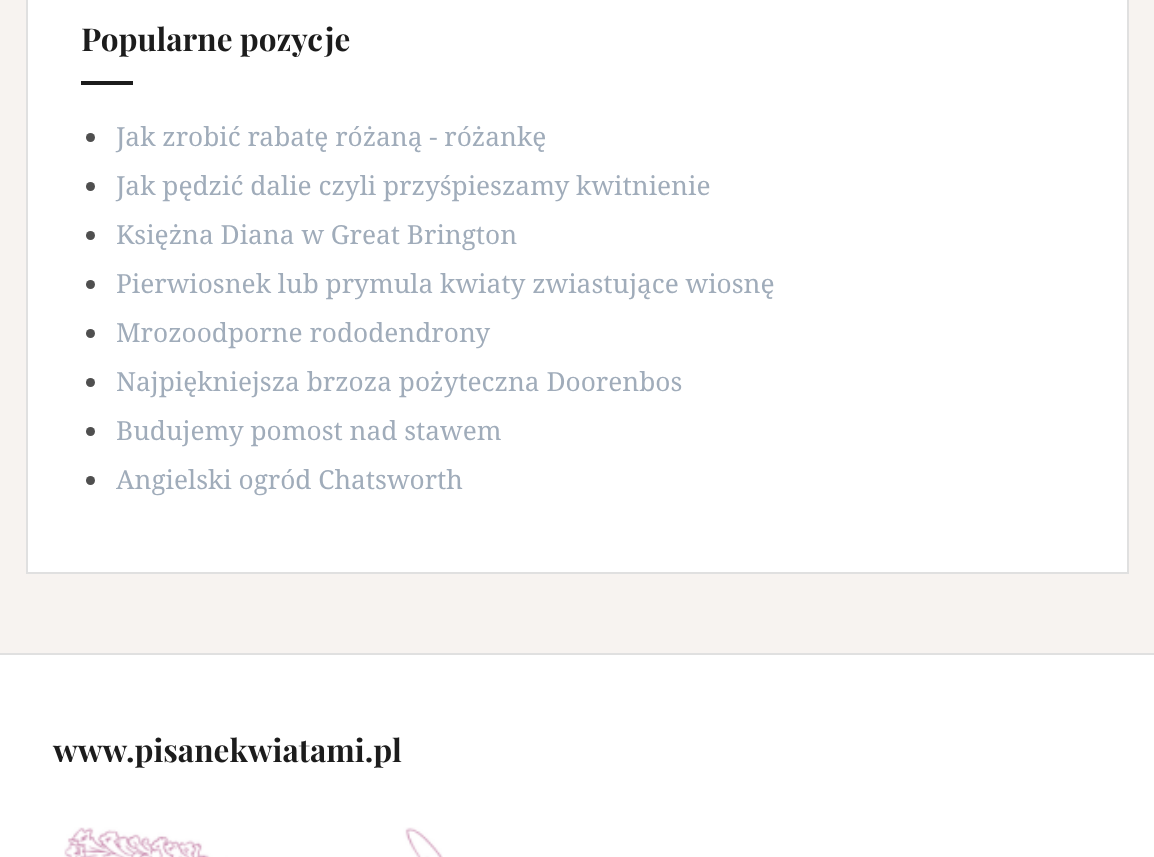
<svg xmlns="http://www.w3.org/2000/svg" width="1154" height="857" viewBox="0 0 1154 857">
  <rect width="100%" height="100%" fill="#f7f3f0"/>
  <path d="M27 -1h1101v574H27z" fill="#fff" stroke="#e0e0e0" stroke-width="2"/>
  <path d="M81 81h52v4H81z" fill="#1c1c1c"/>
  <circle cx="90.5" cy="137.5" r="4.5" fill="#4f4f4f"/>
  <circle cx="90.5" cy="186.5" r="4.5" fill="#4f4f4f"/>
  <circle cx="90.5" cy="235.5" r="4.5" fill="#4f4f4f"/>
  <circle cx="90.5" cy="284.5" r="4.5" fill="#4f4f4f"/>
  <circle cx="90.5" cy="333.5" r="4.5" fill="#4f4f4f"/>
  <circle cx="90.5" cy="382.5" r="4.5" fill="#4f4f4f"/>
  <circle cx="90.5" cy="431.5" r="4.5" fill="#4f4f4f"/>
  <circle cx="90.5" cy="480.5" r="4.5" fill="#4f4f4f"/>
  <path d="M0 655h1154v202H0z" fill="#fff"/>
  <path d="M0 653h1154v2H0z" fill="#e0e0e0"/>
  <image x="64" y="827" width="379" height="30" href="img/1.png"/>
  <text x="81" y="51" font-family="Playfair Display" font-size="31.5" font-weight="bold" fill="#1c1c1c">Popularne pozycje</text>
  <g font-family="Noto Serif" font-size="26.25" fill="#a0acba">
    <text x="116" y="146">Jak zrobić rabatę różaną - różankę</text>
    <text x="116" y="195">Jak pędzić dalie czyli przyśpieszamy kwitnienie</text>
    <text x="116" y="244">Księżna Diana w Great Brington</text>
    <text x="116" y="293">Pierwiosnek lub prymula kwiaty zwiastujące wiosnę</text>
    <text x="116" y="342">Mrozoodporne rododendrony</text>
    <text x="116" y="391">Najpiękniejsza brzoza pożyteczna Doorenbos</text>
    <text x="116" y="440">Budujemy pomost nad stawem</text>
    <text x="116" y="489">Angielski ogród Chatsworth</text>
  </g>
  <text x="53" y="762" font-family="Playfair Display" font-size="31.5" font-weight="bold" fill="#1c1c1c">www.pisanekwiatami.pl</text>
</svg>
